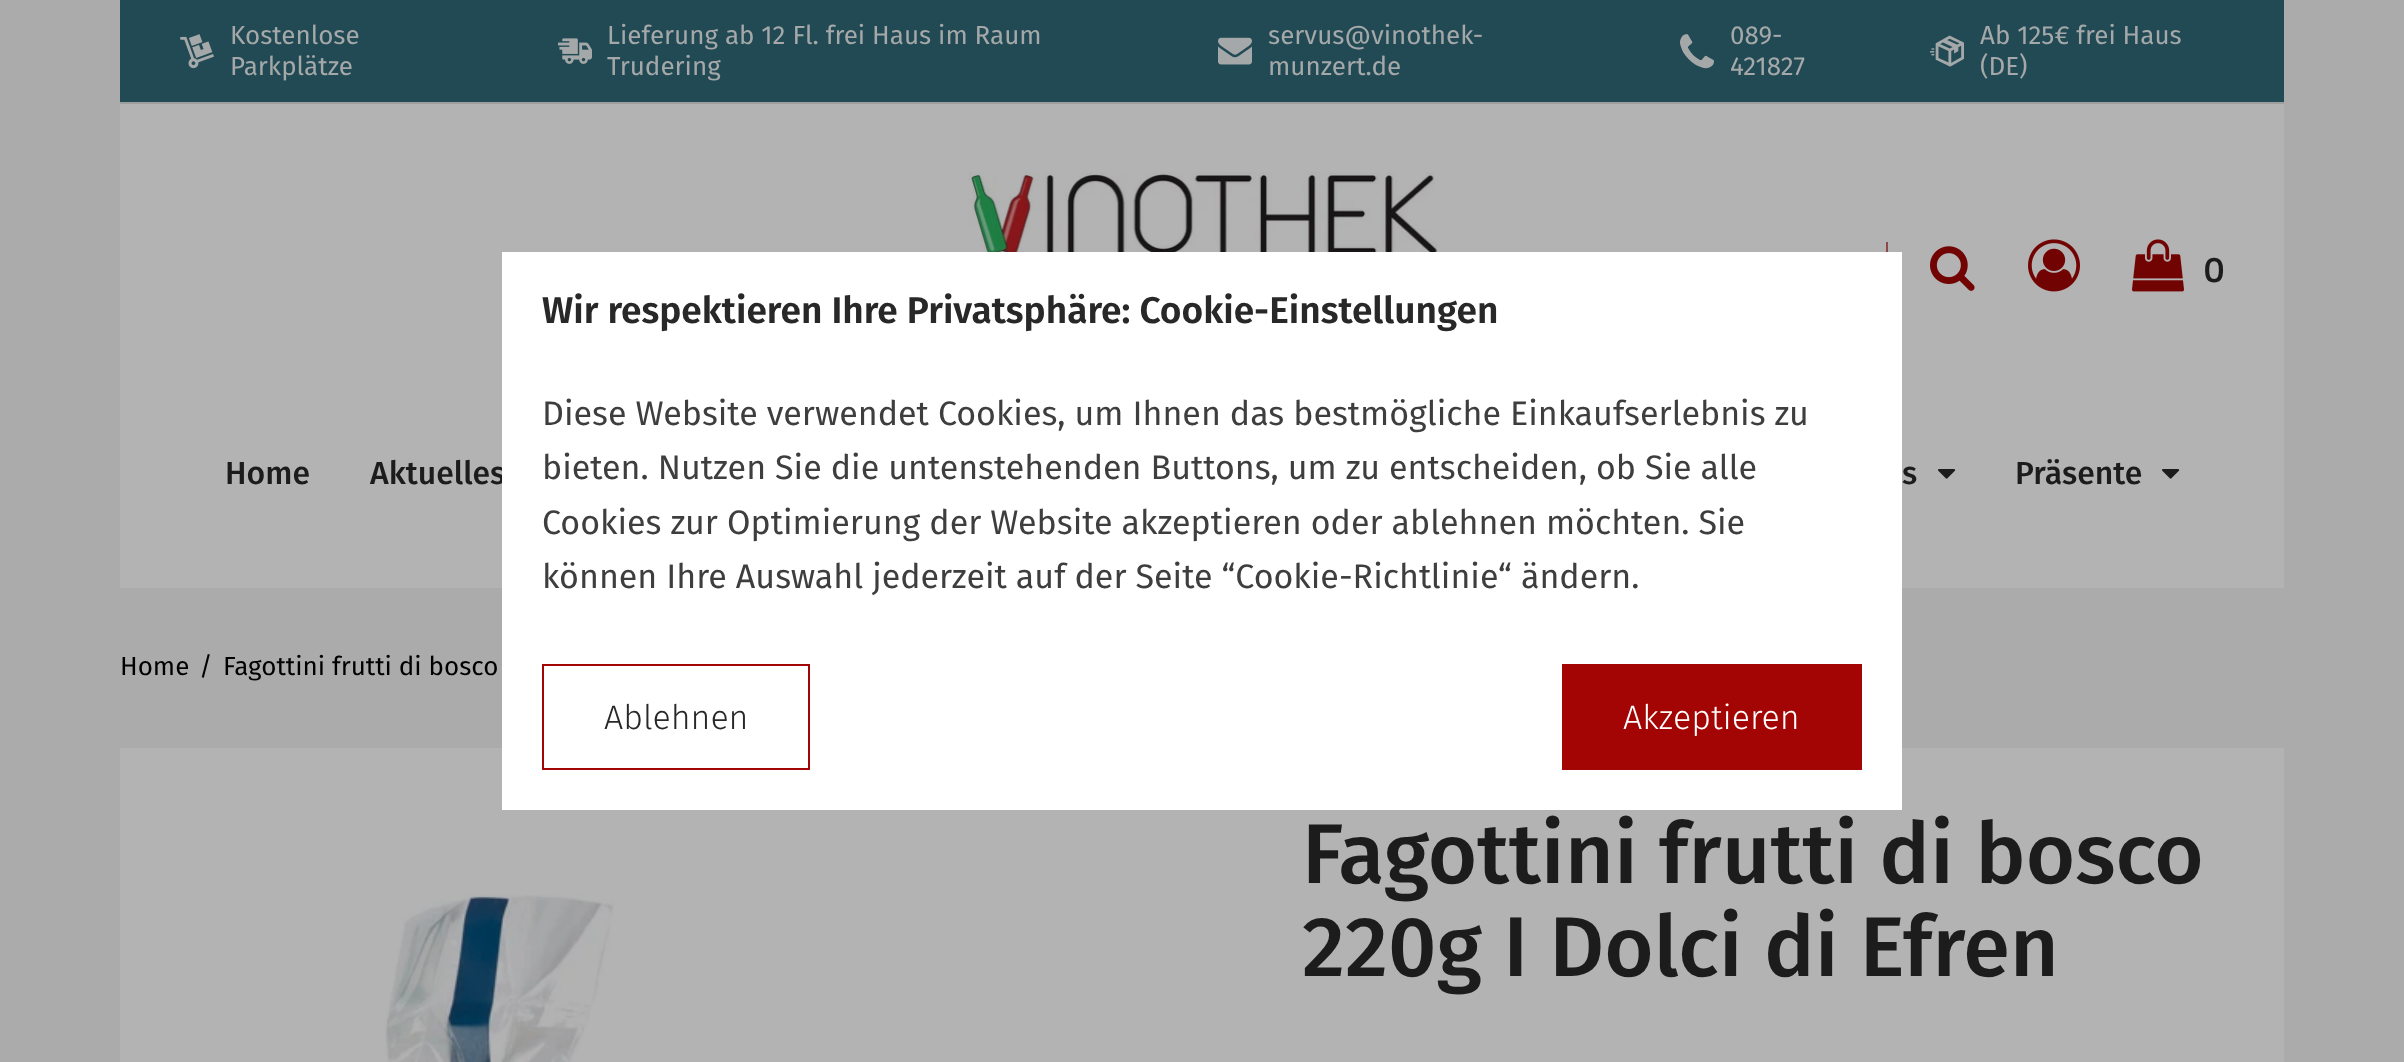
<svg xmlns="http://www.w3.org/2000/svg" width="2404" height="1062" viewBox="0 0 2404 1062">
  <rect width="100%" height="100%" fill="#ababab"/>
  <path d="M120 0h2164v102H120z" fill="#224a54"/>
  <path d="M120 102h2164v2H120z" fill="#9e9e9e"/>
  <image x="180" y="34" width="34" height="35" href="img/1.png"/>
  <image x="558" y="38" width="34" height="26" href="img/2.png"/>
  <image x="1218" y="37" width="34" height="28" href="img/3.png"/>
  <image x="1680" y="34" width="34" height="35" href="img/4.png"/>
  <image x="1930" y="35" width="34" height="32" href="img/5.png"/>
  <path d="M120 104h2164v484H120z" fill="#b3b3b3"/>
  <image x="968" y="172" width="470" height="80" href="img/6.png"/>
  <path d="M1886 242h2v10H1886z" fill="#8c4949"/>
  <image x="1930" y="246" width="45" height="45" href="img/7.png"/>
  <image x="2028" y="239" width="52" height="53" href="img/8.png"/>
  <image x="2132" y="239" width="52" height="53" href="img/9.png"/>
  <image x="1938" y="469" width="18" height="10" href="img/10.png"/>
  <image x="2162" y="469" width="18" height="10" href="img/10.png"/>
  <path d="M120 748h2164v314H120z" fill="#b3b3b3"/>
  <image x="385" y="894" width="229" height="168" href="img/11.png"/>
  <g font-family="Fira Sans" font-size="26" fill="#a4a8a9">
    <text x="230" y="44">Kostenlose</text>
    <text x="230" y="75">Parkplätze</text>
    <text x="607" y="44">Lieferung ab 12 Fl. frei Haus im Raum</text>
    <text x="607" y="75">Trudering</text>
    <text x="1268" y="44">servus@vinothek-</text>
    <text x="1268" y="75">munzert.de</text>
    <text x="1730" y="44">089-</text>
    <text x="1730" y="75">421827</text>
    <text x="1980" y="44">Ab 125€ frei Haus</text>
    <text x="1980" y="75">(DE)</text>
  </g>
  <text x="2204" y="282" font-family="Titillium Web" font-size="36" font-weight="600" fill="#1c1c1c">0</text>
  <g font-family="Fira Sans" font-size="32" font-weight="500" fill="#1c1c1c">
    <text x="225" y="484">Home</text>
    <text x="370" y="484">Aktuelles</text>
    <text x="1902" y="484">s</text>
    <text x="2015" y="484">Präsente</text>
  </g>
  <g font-family="Fira Sans" font-size="26" fill="#000">
    <text x="120" y="675">Home</text>
    <text x="199" y="675">/</text>
    <text x="223" y="675">Fagottini frutti di bosco</text>
  </g>
  <g font-family="Fira Sans" font-size="84.75" font-weight="500" fill="#1c1c1c">
    <text x="1302" y="883">Fagottini frutti di bosco</text>
    <text x="1302" y="976">220g I Dolci di Efren</text>
  </g>
  <path d="M502 252h1400v558H502z" fill="#fff"/>
  <text x="542" y="323" font-family="Fira Sans" font-size="37.1" font-weight="600" fill="#282828">Wir respektieren Ihre Privatsphäre: Cookie-Einstellungen</text>
  <g font-family="Fira Sans" font-size="34" fill="#3e3e3e">
    <text x="542" y="425">Diese Website verwendet Cookies, um Ihnen das bestmögliche Einkaufserlebnis zu</text>
    <text x="542" y="479">bieten. Nutzen Sie die untenstehenden Buttons, um zu entscheiden, ob Sie alle</text>
    <text x="542" y="534">Cookies zur Optimierung der Website akzeptieren oder ablehnen möchten. Sie</text>
    <text x="542" y="588">können Ihre Auswahl jederzeit auf der Seite “Cookie-Richtlinie“ ändern.</text>
  </g>
  <path d="M543 665h266v104H543z" fill="none" stroke="#a30404" stroke-width="2"/>
  <text x="604" y="729" font-family="Fira Sans" font-size="34" font-weight="300" fill="#282828">Ablehnen</text>
  <path d="M1562 664h300v106H1562z" fill="#a30404"/>
  <text x="1623" y="729" font-family="Fira Sans" font-size="34" font-weight="300" fill="#fff">Akzeptieren</text>
</svg>
